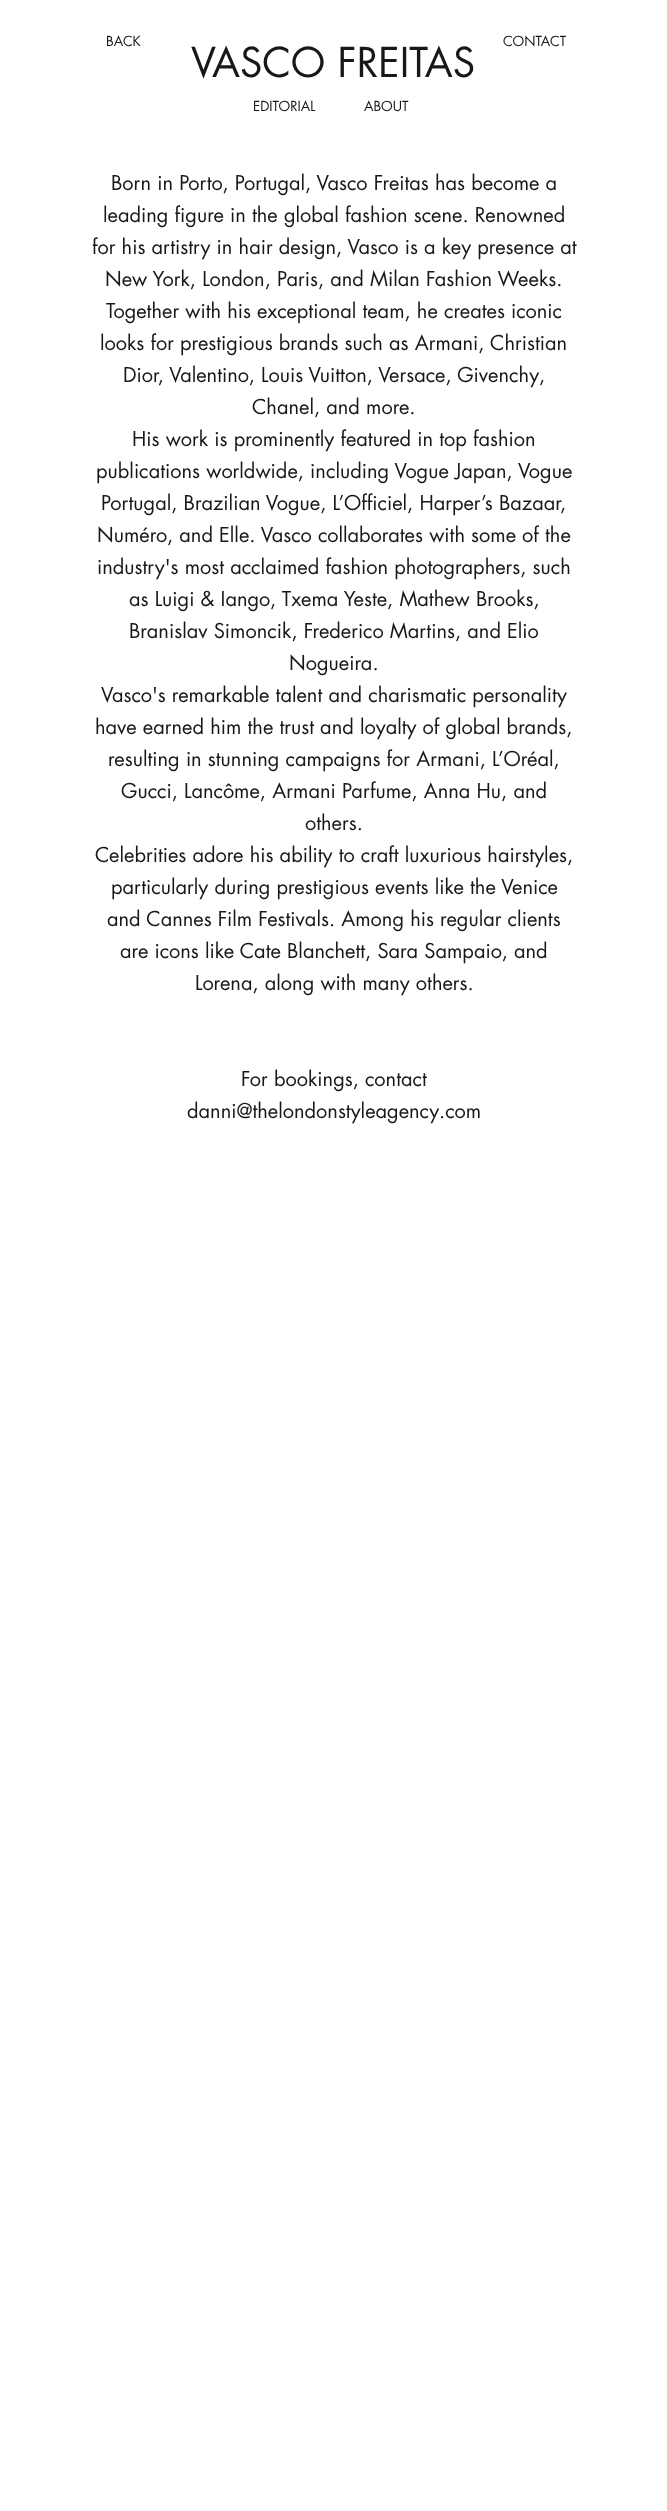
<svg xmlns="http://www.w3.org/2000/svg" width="667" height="2511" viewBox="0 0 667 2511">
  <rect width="100%" height="100%" fill="#fff"/>
  <g font-family="futura" font-size="13.5" fill="#181818">
    <text x="106" y="46">BACK</text>
    <text x="503" y="46">CONTACT</text>
  </g>
  <text x="191" y="77" font-family="futura" font-size="40" fill="#181818">VASCO FREITAS</text>
  <g font-family="futura" font-size="13.5" fill="#181818">
    <text x="253" y="111">EDITORIAL</text>
    <text x="364" y="111">ABOUT</text>
  </g>
  <g font-family="futura" font-size="20" fill="#181818">
    <text x="111" y="190">Born in Porto, Portugal, Vasco Freitas has become a</text>
    <text x="103" y="222">leading figure in the global fashion scene. Renowned</text>
    <text x="92" y="254">for his artistry in hair design, Vasco is a key presence at</text>
    <text x="105" y="286">New York, London, Paris, and Milan Fashion Weeks.</text>
    <text x="106" y="318">Together with his exceptional team, he creates iconic</text>
    <text x="100" y="350">looks for prestigious brands such as Armani, Christian</text>
    <text x="123" y="382">Dior, Valentino, Louis Vuitton, Versace, Givenchy,</text>
    <text x="252" y="414">Chanel, and more.</text>
    <text x="132" y="446">His work is prominently featured in top fashion</text>
    <text x="96" y="478">publications worldwide, including Vogue Japan, Vogue</text>
    <text x="101" y="510">Portugal, Brazilian Vogue, L’Officiel, Harper’s Bazaar,</text>
    <text x="97" y="542">Numéro, and Elle. Vasco collaborates with some of the</text>
    <text x="97" y="574">industry's most acclaimed fashion photographers, such</text>
    <text x="129" y="606">as Luigi &amp; Iango, Txema Yeste, Mathew Brooks,</text>
    <text x="129" y="638">Branislav Simoncik, Frederico Martins, and Elio</text>
    <text x="289" y="670">Nogueira.</text>
    <text x="101" y="702">Vasco's remarkable talent and charismatic personality</text>
    <text x="95" y="734">have earned him the trust and loyalty of global brands,</text>
    <text x="108" y="766">resulting in stunning campaigns for Armani, L’Oréal,</text>
    <text x="121" y="798">Gucci, Lancôme, Armani Parfume, Anna Hu, and</text>
    <text x="305" y="830">others.</text>
    <text x="95" y="862">Celebrities adore his ability to craft luxurious hairstyles,</text>
    <text x="111" y="894">particularly during prestigious events like the Venice</text>
    <text x="107" y="926">and Cannes Film Festivals. Among his regular clients</text>
    <text x="120" y="958">are icons like Cate Blanchett, Sara Sampaio, and</text>
    <text x="195" y="990">Lorena, along with many others.</text>
    <text x="241" y="1086">For bookings, contact</text>
    <text x="187" y="1118">danni@thelondonstyleagency.com</text>
  </g>
</svg>
